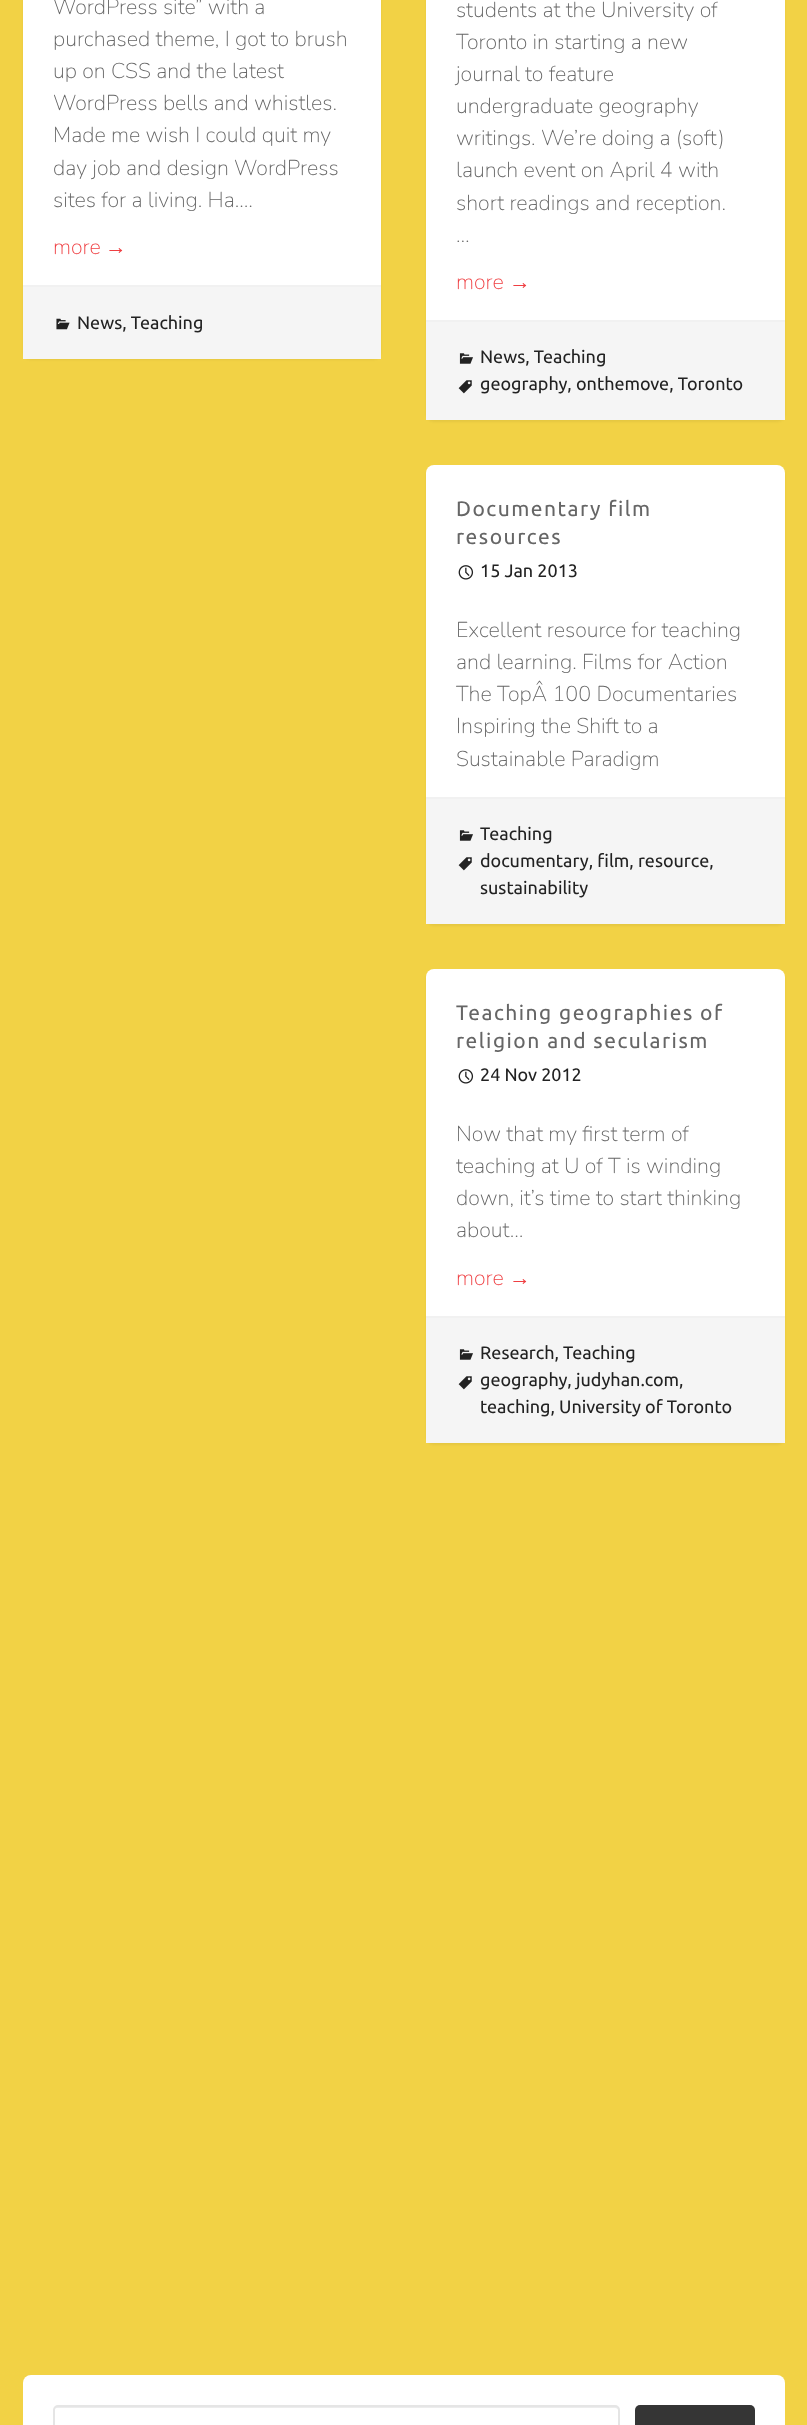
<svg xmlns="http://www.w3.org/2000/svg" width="807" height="2425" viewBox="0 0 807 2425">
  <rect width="100%" height="100%" fill="#f2d245"/>
  <rect x="23" y="-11" width="358" height="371" rx="8" fill="#0000000d" filter="blur(1px)"/>
  <path d="M23 0h358v285H23z" fill="#fff"/>
  <path d="M23 287h358v72H23z" fill="#f5f5f5"/>
  <path d="M23 285h358v2H23z" fill="#f1f1f1"/>
  <image x="56" y="318" width="14" height="12" href="img/1.png"/>
  <rect x="426" y="-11" width="359" height="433" rx="8" fill="#0000000d" filter="blur(1px)"/>
  <path d="M426 0h359v320H426z" fill="#fff"/>
  <path d="M426 322h359v98H426z" fill="#f5f5f5"/>
  <path d="M426 320h359v2H426z" fill="#f1f1f1"/>
  <image x="459" y="353" width="14" height="11" href="img/2.png"/>
  <image x="458" y="380" width="14" height="14" href="img/3.png"/>
  <rect x="426" y="467" width="359" height="459" rx="8" fill="#0000000d" filter="blur(1px)"/>
  <rect x="426" y="465" width="359" height="459" rx="8" fill="#fff"/>
  <image x="458" y="565" width="16" height="15" href="img/4.png"/>
  <path d="M426 799h359v125H426z" fill="#f5f5f5"/>
  <path d="M426 797h359v2H426z" fill="#f1f1f1"/>
  <image x="459" y="830" width="14" height="11" href="img/2.png"/>
  <image x="458" y="857" width="14" height="14" href="img/3.png"/>
  <rect x="426" y="971" width="359" height="474" rx="8" fill="#0000000d" filter="blur(1px)"/>
  <rect x="426" y="969" width="359" height="474" rx="8" fill="#fff"/>
  <image x="458" y="1069" width="16" height="15" href="img/4.png"/>
  <path d="M426 1318h359v125H426z" fill="#f5f5f5"/>
  <path d="M426 1316h359v2H426z" fill="#f1f1f1"/>
  <image x="459" y="1349" width="14" height="11" href="img/2.png"/>
  <image x="458" y="1376" width="14" height="14" href="img/3.png"/>
  <rect x="23" y="2375" width="762" height="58" rx="8" fill="#fff"/>
  <path d="M57 2408H615C617 2408 618 2409 618 2410V2409C618 2407 617 2406 615 2406H57C55 2406 54 2407 54 2409V2410C54 2409 55 2408 57 2408Z" fill="#ececec"/>
  <rect x="54" y="2406" width="565" height="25" rx="4" fill="none" stroke="#e5e5e5" stroke-width="2"/>
  <rect x="635" y="2405" width="120" height="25" rx="5" fill="#353535"/>
  <g font-family="Nunito" font-size="21.5" font-weight="200" fill="#666">
    <text x="53" y="14">WordPress site” with a</text>
    <text x="53" y="46">purchased theme, I got to brush</text>
    <text x="53" y="78">up on CSS and the latest</text>
    <text x="53" y="110">WordPress bells and whistles.</text>
    <text x="53" y="142">Made me wish I could quit my</text>
    <text x="53" y="175">day job and design WordPress</text>
    <text x="53" y="207">sites for a living. Ha.…</text>
  </g>
  <text x="53" y="254" font-family="Nunito" font-size="21.5" font-weight="200" fill="#ef3f42">more</text>
  <text x="105" y="254" font-family="Liberation Sans" font-size="21.5" fill="#ef3f42">→</text>
  <text x="77" y="329" font-family="Ubuntu" font-size="18" fill="#222">News, Teaching</text>
  <g font-family="Nunito" font-size="21.5" font-weight="200" fill="#666">
    <text x="456" y="17">students at the University of</text>
    <text x="456" y="49">Toronto in starting a new</text>
    <text x="456" y="81">journal to feature</text>
    <text x="456" y="113">undergraduate geography</text>
    <text x="456" y="145">writings. We’re doing a (soft)</text>
    <text x="456" y="177">launch event on April 4 with</text>
    <text x="456" y="210">short readings and reception.</text>
    <text x="456" y="242">…</text>
  </g>
  <text x="456" y="289" font-family="Nunito" font-size="21.5" font-weight="200" fill="#ef3f42">more</text>
  <text x="509" y="289" font-family="Liberation Sans" font-size="21.5" fill="#ef3f42">→</text>
  <g font-family="Ubuntu" font-size="18" fill="#222">
    <text x="480" y="363">News, Teaching</text>
    <text x="480" y="390">geography, onthemove, Toronto</text>
  </g>
  <g font-family="Ubuntu" font-size="21" letter-spacing="1.5" fill="#666">
    <text x="456" y="516">Documentary film</text>
    <text x="456" y="544">resources</text>
  </g>
  <text x="480" y="577" font-family="Ubuntu" font-size="18" fill="#222">15 Jan 2013</text>
  <g font-family="Nunito" font-size="21.5" font-weight="200" fill="#666">
    <text x="456" y="637">Excellent resource for teaching</text>
    <text x="456" y="669">and learning. Films for Action</text>
    <text x="456" y="701">The TopÂ 100 Documentaries</text>
    <text x="456" y="733">Inspiring the Shift to a</text>
    <text x="456" y="766">Sustainable Paradigm</text>
  </g>
  <g font-family="Ubuntu" font-size="18" fill="#222">
    <text x="480" y="840">Teaching</text>
    <text x="480" y="867">documentary, film, resource,</text>
    <text x="480" y="894">sustainability</text>
  </g>
  <g font-family="Ubuntu" font-size="21" letter-spacing="1.5" fill="#666">
    <text x="456" y="1020">Teaching geographies of</text>
    <text x="456" y="1048">religion and secularism</text>
  </g>
  <text x="480" y="1081" font-family="Ubuntu" font-size="18" fill="#222">24 Nov 2012</text>
  <g font-family="Nunito" font-size="21.5" font-weight="200" fill="#666">
    <text x="456" y="1141">Now that my first term of</text>
    <text x="456" y="1173">teaching at U of T is winding</text>
    <text x="456" y="1205">down, it’s time to start thinking</text>
    <text x="456" y="1237">about…</text>
  </g>
  <text x="456" y="1285" font-family="Nunito" font-size="21.5" font-weight="200" fill="#ef3f42">more</text>
  <text x="509" y="1285" font-family="Liberation Sans" font-size="21.5" fill="#ef3f42">→</text>
  <g font-family="Ubuntu" font-size="18" fill="#222">
    <text x="480" y="1359">Research, Teaching</text>
    <text x="480" y="1386">geography, judyhan.com,</text>
    <text x="480" y="1413">teaching, University of Toronto</text>
  </g>
</svg>
